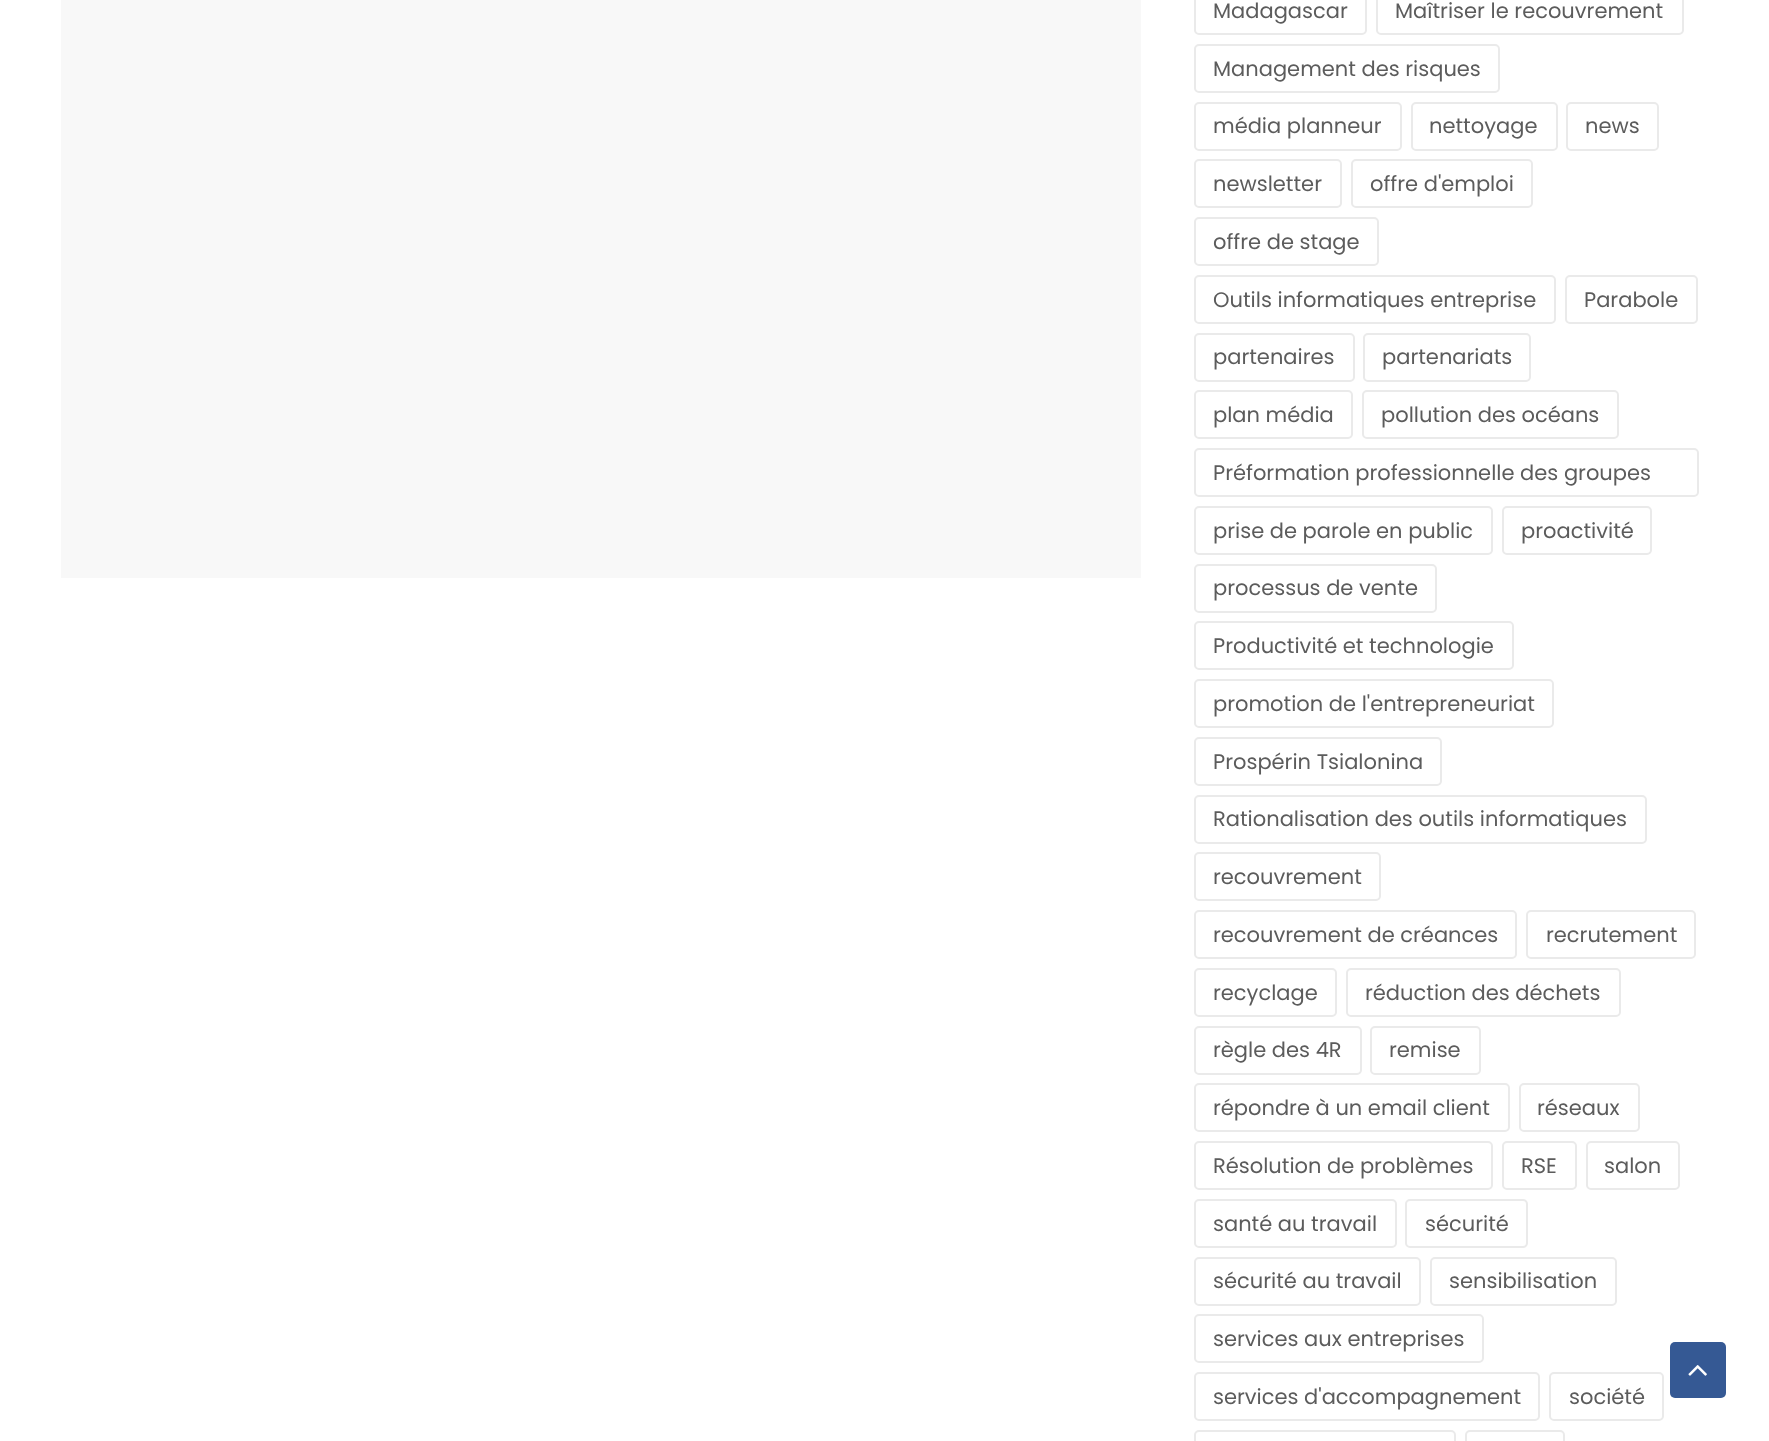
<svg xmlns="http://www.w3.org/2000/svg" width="1769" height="1441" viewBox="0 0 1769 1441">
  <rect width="100%" height="100%" fill="#fff"/>
  <path d="M61 0h1080v578H61z" fill="#f8f8f8"/>
  <rect x="1195" y="-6" width="171" height="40" rx="4" fill="none" stroke="#eaeaea" stroke-width="2"/>
  <rect x="1377" y="-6" width="306" height="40" rx="4" fill="none" stroke="#eaeaea" stroke-width="2"/>
  <rect x="1195" y="45" width="304" height="47" rx="4" fill="none" stroke="#eaeaea" stroke-width="2"/>
  <rect x="1195" y="103" width="206" height="47" rx="4" fill="none" stroke="#eaeaea" stroke-width="2"/>
  <rect x="1412" y="103" width="145" height="47" rx="4" fill="none" stroke="#eaeaea" stroke-width="2"/>
  <rect x="1567" y="103" width="91" height="47" rx="4" fill="none" stroke="#eaeaea" stroke-width="2"/>
  <rect x="1195" y="160" width="146" height="47" rx="4" fill="none" stroke="#eaeaea" stroke-width="2"/>
  <rect x="1352" y="160" width="180" height="47" rx="4" fill="none" stroke="#eaeaea" stroke-width="2"/>
  <rect x="1195" y="218" width="183" height="47" rx="4" fill="none" stroke="#eaeaea" stroke-width="2"/>
  <rect x="1195" y="276" width="360" height="47" rx="4" fill="none" stroke="#eaeaea" stroke-width="2"/>
  <rect x="1566" y="276" width="131" height="47" rx="4" fill="none" stroke="#eaeaea" stroke-width="2"/>
  <rect x="1195" y="334" width="159" height="47" rx="4" fill="none" stroke="#eaeaea" stroke-width="2"/>
  <rect x="1364" y="334" width="166" height="47" rx="4" fill="none" stroke="#eaeaea" stroke-width="2"/>
  <rect x="1195" y="391" width="157" height="47" rx="4" fill="none" stroke="#eaeaea" stroke-width="2"/>
  <rect x="1363" y="391" width="255" height="47" rx="4" fill="none" stroke="#eaeaea" stroke-width="2"/>
  <rect x="1195" y="449" width="503" height="47" rx="4" fill="none" stroke="#eaeaea" stroke-width="2"/>
  <rect x="1195" y="507" width="297" height="47" rx="4" fill="none" stroke="#eaeaea" stroke-width="2"/>
  <rect x="1503" y="507" width="148" height="47" rx="4" fill="none" stroke="#eaeaea" stroke-width="2"/>
  <rect x="1195" y="565" width="241" height="47" rx="4" fill="none" stroke="#eaeaea" stroke-width="2"/>
  <rect x="1195" y="622" width="318" height="47" rx="4" fill="none" stroke="#eaeaea" stroke-width="2"/>
  <rect x="1195" y="680" width="358" height="47" rx="4" fill="none" stroke="#eaeaea" stroke-width="2"/>
  <rect x="1195" y="738" width="246" height="47" rx="4" fill="none" stroke="#eaeaea" stroke-width="2"/>
  <rect x="1195" y="796" width="451" height="47" rx="4" fill="none" stroke="#eaeaea" stroke-width="2"/>
  <rect x="1195" y="853" width="185" height="47" rx="4" fill="none" stroke="#eaeaea" stroke-width="2"/>
  <rect x="1195" y="911" width="321" height="47" rx="4" fill="none" stroke="#eaeaea" stroke-width="2"/>
  <rect x="1527" y="911" width="168" height="47" rx="4" fill="none" stroke="#eaeaea" stroke-width="2"/>
  <rect x="1195" y="969" width="141" height="47" rx="4" fill="none" stroke="#eaeaea" stroke-width="2"/>
  <rect x="1347" y="969" width="273" height="47" rx="4" fill="none" stroke="#eaeaea" stroke-width="2"/>
  <rect x="1195" y="1027" width="166" height="47" rx="4" fill="none" stroke="#eaeaea" stroke-width="2"/>
  <rect x="1371" y="1027" width="109" height="47" rx="4" fill="none" stroke="#eaeaea" stroke-width="2"/>
  <rect x="1195" y="1084" width="314" height="47" rx="4" fill="none" stroke="#eaeaea" stroke-width="2"/>
  <rect x="1520" y="1084" width="119" height="47" rx="4" fill="none" stroke="#eaeaea" stroke-width="2"/>
  <rect x="1195" y="1142" width="297" height="47" rx="4" fill="none" stroke="#eaeaea" stroke-width="2"/>
  <rect x="1503" y="1142" width="73" height="47" rx="4" fill="none" stroke="#eaeaea" stroke-width="2"/>
  <rect x="1587" y="1142" width="92" height="47" rx="4" fill="none" stroke="#eaeaea" stroke-width="2"/>
  <rect x="1195" y="1200" width="201" height="47" rx="4" fill="none" stroke="#eaeaea" stroke-width="2"/>
  <rect x="1406" y="1200" width="121" height="47" rx="4" fill="none" stroke="#eaeaea" stroke-width="2"/>
  <rect x="1195" y="1258" width="225" height="47" rx="4" fill="none" stroke="#eaeaea" stroke-width="2"/>
  <rect x="1431" y="1258" width="185" height="47" rx="4" fill="none" stroke="#eaeaea" stroke-width="2"/>
  <rect x="1195" y="1315" width="288" height="47" rx="4" fill="none" stroke="#eaeaea" stroke-width="2"/>
  <rect x="1195" y="1373" width="344" height="47" rx="4" fill="none" stroke="#eaeaea" stroke-width="2"/>
  <rect x="1550" y="1373" width="113" height="47" rx="4" fill="none" stroke="#eaeaea" stroke-width="2"/>
  <rect x="1195" y="1431" width="260" height="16" rx="4" fill="none" stroke="#eaeaea" stroke-width="2"/>
  <rect x="1466" y="1431" width="98" height="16" rx="4" fill="none" stroke="#eaeaea" stroke-width="2"/>
  <rect x="1670" y="1342" width="56" height="56" rx="5" fill="#355994"/>
  <image x="1688" y="1365" width="19" height="11" href="img/1.png"/>
  <g font-family="Poppins" font-size="21" fill="#5c5c5c">
    <text x="1213" y="18">Madagascar</text>
    <text x="1395" y="18">Maîtriser le recouvrement</text>
    <text x="1213" y="76">Management des risques</text>
    <text x="1213" y="133">média planneur</text>
    <text x="1429" y="133">nettoyage</text>
    <text x="1585" y="133">news</text>
    <text x="1213" y="191">newsletter</text>
    <text x="1370" y="191">offre d'emploi</text>
    <text x="1213" y="249">offre de stage</text>
    <text x="1213" y="307">Outils informatiques entreprise</text>
    <text x="1584" y="307">Parabole</text>
    <text x="1213" y="364">partenaires</text>
    <text x="1382" y="364">partenariats</text>
    <text x="1213" y="422">plan média</text>
    <text x="1381" y="422">pollution des océans</text>
    <text x="1213" y="480">Préformation professionnelle des groupes</text>
    <text x="1213" y="538">prise de parole en public</text>
    <text x="1521" y="538">proactivité</text>
    <text x="1213" y="595">processus de vente</text>
    <text x="1213" y="653">Productivité et technologie</text>
    <text x="1213" y="711">promotion de l'entrepreneuriat</text>
    <text x="1213" y="769">Prospérin Tsialonina</text>
    <text x="1213" y="826">Rationalisation des outils informatiques</text>
    <text x="1213" y="884">recouvrement</text>
    <text x="1213" y="942">recouvrement de créances</text>
    <text x="1546" y="942">recrutement</text>
    <text x="1213" y="1000">recyclage</text>
    <text x="1365" y="1000">réduction des déchets</text>
    <text x="1213" y="1057">règle des 4R</text>
    <text x="1389" y="1057">remise</text>
    <text x="1213" y="1115">répondre à un email client</text>
    <text x="1537" y="1115">réseaux</text>
    <text x="1213" y="1173">Résolution de problèmes</text>
    <text x="1521" y="1173">RSE</text>
    <text x="1604" y="1173">salon</text>
    <text x="1213" y="1231">santé au travail</text>
    <text x="1425" y="1231">sécurité</text>
    <text x="1213" y="1288">sécurité au travail</text>
    <text x="1449" y="1288">sensibilisation</text>
    <text x="1213" y="1346">services aux entreprises</text>
    <text x="1213" y="1404">services d'accompagnement</text>
    <text x="1569" y="1404">société</text>
  </g>
</svg>
